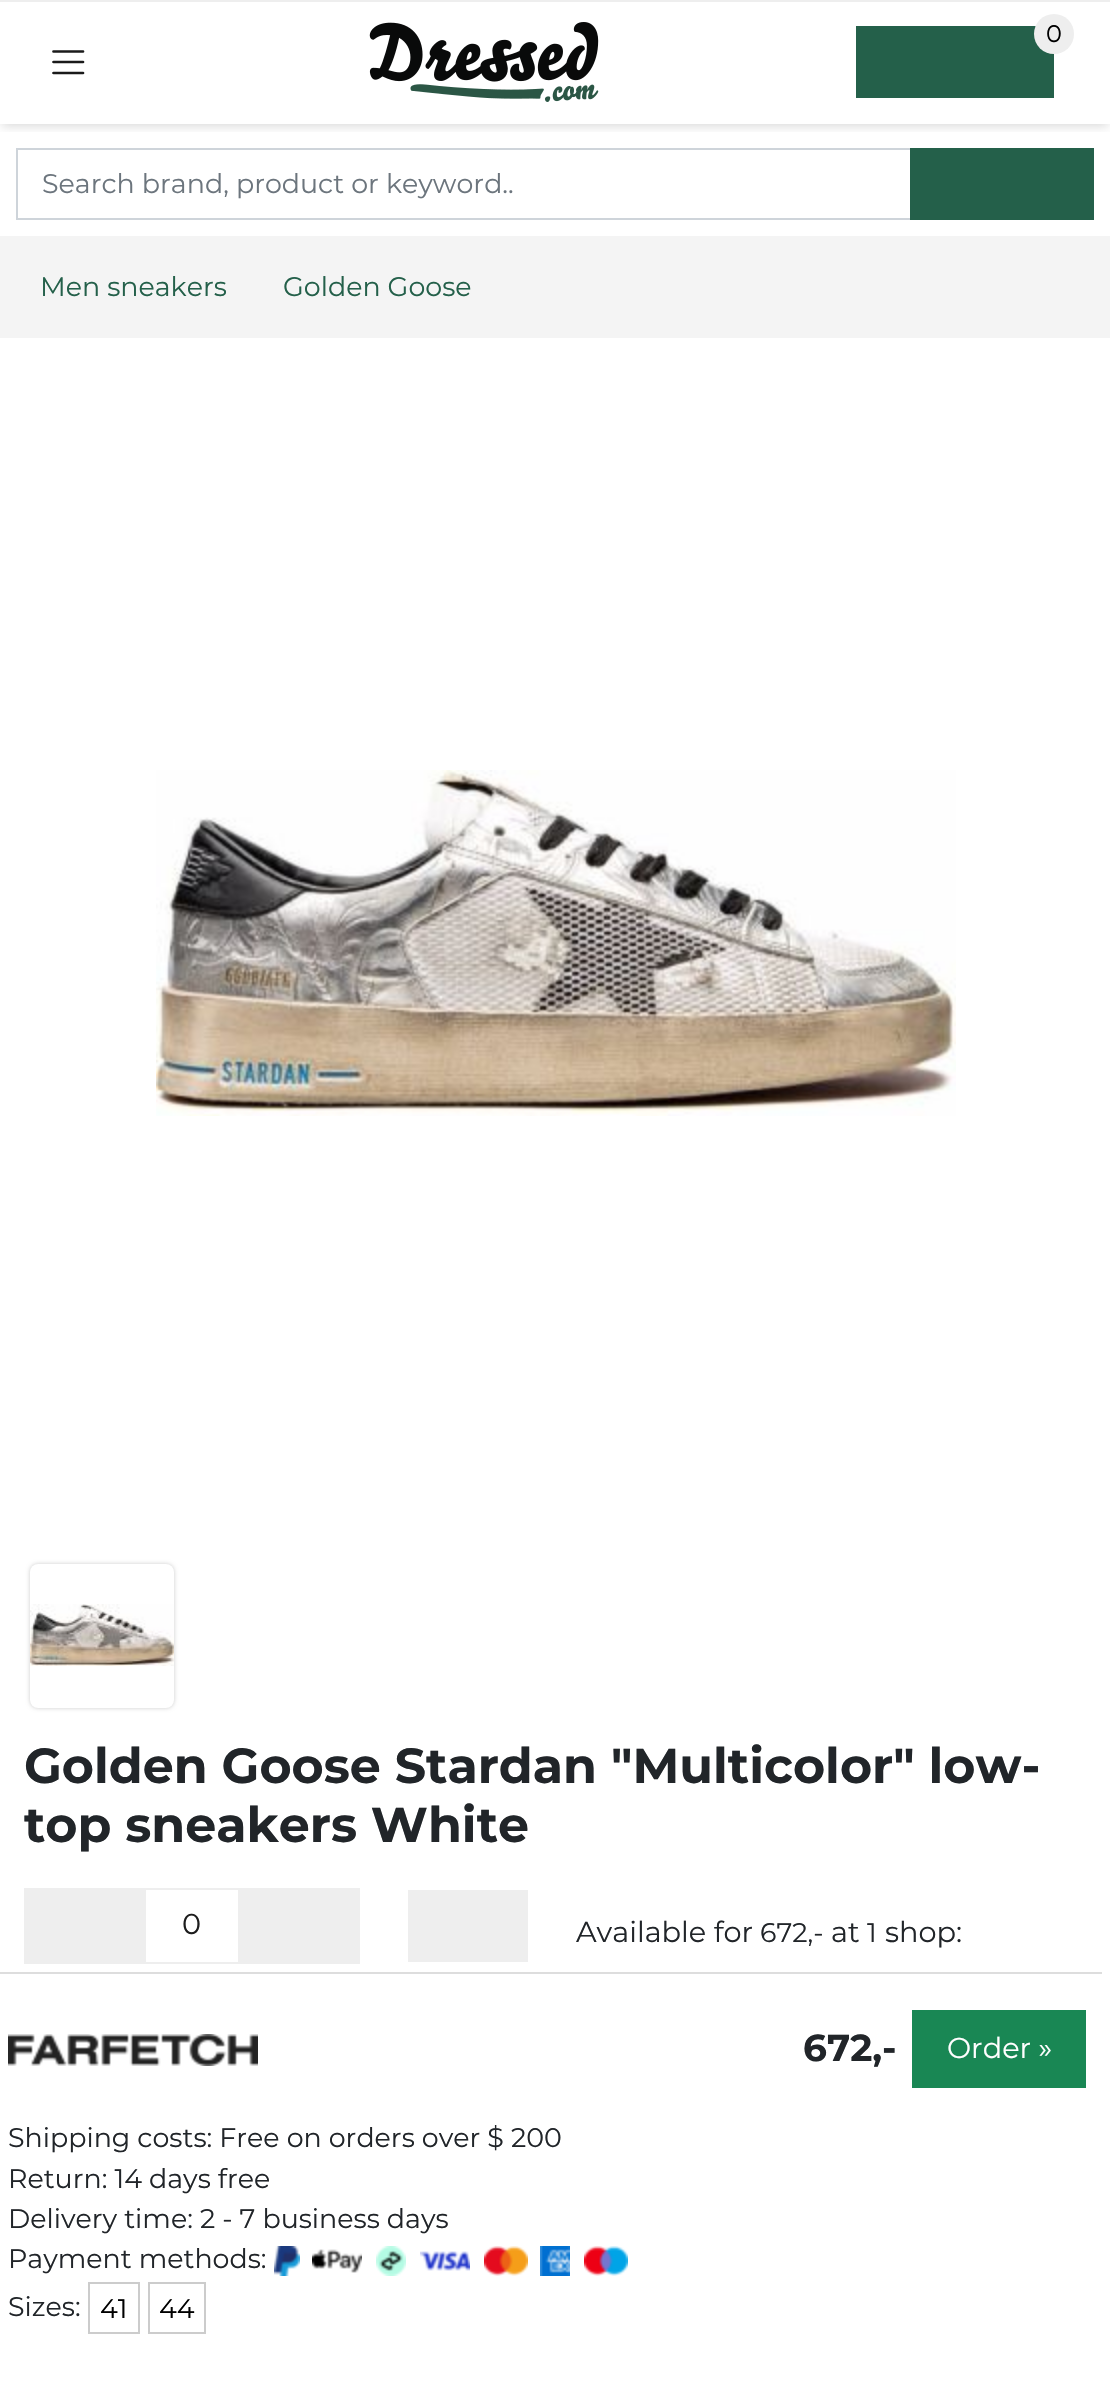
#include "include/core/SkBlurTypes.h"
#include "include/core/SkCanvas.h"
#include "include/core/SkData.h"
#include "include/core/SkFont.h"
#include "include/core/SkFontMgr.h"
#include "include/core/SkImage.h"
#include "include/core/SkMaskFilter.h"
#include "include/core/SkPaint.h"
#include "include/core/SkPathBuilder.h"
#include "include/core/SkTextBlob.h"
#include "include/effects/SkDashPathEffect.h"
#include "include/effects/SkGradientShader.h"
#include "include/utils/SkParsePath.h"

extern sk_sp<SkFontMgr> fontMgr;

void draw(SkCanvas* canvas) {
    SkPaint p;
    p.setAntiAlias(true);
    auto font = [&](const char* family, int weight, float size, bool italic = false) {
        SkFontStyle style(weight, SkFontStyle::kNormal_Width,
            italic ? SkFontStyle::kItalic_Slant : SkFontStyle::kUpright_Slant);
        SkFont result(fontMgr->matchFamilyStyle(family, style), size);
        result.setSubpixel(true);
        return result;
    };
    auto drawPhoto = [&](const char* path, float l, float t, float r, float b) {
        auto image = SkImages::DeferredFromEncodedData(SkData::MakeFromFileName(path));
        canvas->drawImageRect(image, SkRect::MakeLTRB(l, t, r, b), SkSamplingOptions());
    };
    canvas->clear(0xFFFFFFFF);
    canvas->save();
    canvas->clipRect(SkRect::MakeLTRB(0, 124, 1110, 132));
    p.setColor(0x26000000);
    p.setMaskFilter(SkMaskFilter::MakeBlur(kNormal_SkBlurStyle, 5));
    canvas->drawRect(SkRect::MakeLTRB(2, 6, 1108, 126), p);
    p.setMaskFilter(nullptr);
    canvas->restore();
    p.setColor(0xFFEEEEEE);
    canvas->drawRect(SkRect::MakeLTRB(0, 0, 1110, 2), p);
    drawPhoto("media/1.png", 369, 22, 599, 102);
    p.setColor(0xFF24604A);
    canvas->drawRect(SkRect::MakeLTRB(856, 26, 1054, 98), p);
    p.setColor(0xFFEEEEEE);
    canvas->drawCircle(1054, 34, 20, p);
    auto font1 = font("Montserrat", 400, 24);
    p.setColor(0xFF000000);
    canvas->drawString("0", 1046, 42, font1, p);
    p.setStyle(SkPaint::kStroke_Style);
    p.setStrokeWidth(2.7f);
    p.setStrokeCap(SkPaint::kRound_Cap);
    p.setColor(0xFF1A1A1A);
    canvas->drawPath(SkPathBuilder().moveTo(53.5f, 51.5f).lineTo(83, 51.5f).moveTo(53.5f, 62).lineTo(83, 62).moveTo(53.5f, 73).lineTo(83, 73).detach(), p);
    p.setStrokeWidth(2);
    p.setStrokeCap(SkPaint::kButt_Cap);
    p.setColor(0xFFCED4DA);
    canvas->drawRect(SkRect::MakeLTRB(17, 149, 911, 219), p);
    auto font2 = font("Montserrat", 400, 26.9f);
    p.setStyle(SkPaint::kFill_Style);
    p.setColor(0xFF6C757D);
    canvas->drawString("Search brand, product or keyword..", 42, 193, font2, p);
    p.setColor(0xFF24604A);
    canvas->drawRect(SkRect::MakeLTRB(910, 148, 1094, 220), p);
    p.setColor(0xFFF4F4F4);
    canvas->drawRect(SkRect::MakeLTRB(0, 236, 1110, 338), p);
    p.setColor(0xFF24604A);
    canvas->drawString("Men sneakers", 40, 296, font2, p);
    canvas->drawString("Golden Goose", 283, 296, font2, p);
    drawPhoto("media/2.png", 156, 770, 956, 1116);
    p.setColor(0x33000000);
    p.setMaskFilter(SkMaskFilter::MakeBlur(kNormal_SkBlurStyle, 2));
    canvas->drawRoundRect(SkRect::MakeLTRB(30, 1564, 174, 1708), 8, 8, p);
    p.setMaskFilter(nullptr);
    p.setColor(0xFFFFFFFF);
    canvas->drawRoundRect(SkRect::MakeLTRB(30, 1564, 174, 1708), 8, 8, p);
    drawPhoto("media/3.png", 30, 1604, 174, 1666);
    auto font3 = font("Montserrat", 700, 49.1f);
    p.setColor(0xFF212529);
    canvas->drawString("Golden Goose Stardan \"Multicolor\" low-", 24, 1783, font3, p);
    canvas->drawString("top sneakers White", 24, 1842, font3, p);
    p.setStyle(SkPaint::kStroke_Style);
    p.setColor(0xFFEEEEEE);
    canvas->drawRect(SkRect::MakeLTRB(25, 1889, 359, 1963), p);
    p.setStyle(SkPaint::kFill_Style);
    canvas->drawRect(SkRect::MakeLTRB(26, 1890, 146, 1962), p);
    auto font4 = font("Montserrat", 400, 28.75f);
    p.setColor(0xFF1D1D1D);
    canvas->drawString("0", 182, 1934, font4, p);
    p.setColor(0xFFEEEEEE);
    canvas->drawRect(SkRect::MakeLTRB(238, 1890, 358, 1962), p);
    canvas->drawRect(SkRect::MakeLTRB(408, 1890, 528, 1962), p);
    p.setColor(0xFF212529);
    canvas->drawString("Available for", 576, 1942, font4, p);
    canvas->drawString("672,-", 760, 1942, font2, p);
    canvas->drawString("at", 831, 1942, font4, p);
    canvas->drawString("1", 867, 1942, font2, p);
    canvas->drawString("shop:", 885, 1942, font4, p);
    p.setColor(0xFFDDDDDD);
    canvas->drawRect(SkRect::MakeLTRB(0, 1972, 1102, 1974), p);
    drawPhoto("media/4.png", 8, 2034, 258, 2066);
    auto font5 = font("Montserrat", 700, 37.5f);
    p.setColor(0xFF212529);
    canvas->drawString("672,-", 803, 2061, font5, p);
    p.setColor(0xFF198754);
    canvas->drawRect(SkRect::MakeLTRB(912, 2010, 1086, 2088), p);
    p.setColor(0xFFFFFFFF);
    canvas->drawString("Order »", 947, 2058, font4, p);
    p.setColor(0xFF212529);
    {
        const struct { const char* s; float x, y; } items[] = {
            {"Shipping costs: Free on orders over $ 200", 8, 2147},
            {"Return: 14 days free", 8, 2188},
            {"Delivery time: 2 - 7 business days", 8, 2228},
            {"Payment methods:", 8, 2268},
        };
        for (auto [s, x, y] : items) {
            canvas->drawString(s, x, y, font2, p);
        }
    }
    drawPhoto("media/5.png", 274, 2246, 300, 2276);
    drawPhoto("media/6.png", 312, 2249, 362, 2273);
    drawPhoto("media/7.png", 376, 2246, 406, 2276);
    drawPhoto("media/8.png", 420, 2251, 470, 2271);
    drawPhoto("media/9.png", 484, 2246, 528, 2276);
    drawPhoto("media/10.png", 540, 2246, 570, 2276);
    drawPhoto("media/11.png", 584, 2246, 628, 2276);
    canvas->drawString("Sizes:", 8, 2316, font2, p);
    p.setStyle(SkPaint::kStroke_Style);
    p.setColor(0xFFCCCCCC);
    canvas->drawRect(SkRect::MakeLTRB(89, 2283, 139, 2333), p);
    p.setStyle(SkPaint::kFill_Style);
    p.setColor(0xFF000000);
    canvas->drawString("41", 100, 2318, font2, p);
    p.setStyle(SkPaint::kStroke_Style);
    p.setColor(0xFFCCCCCC);
    canvas->drawRect(SkRect::MakeLTRB(149, 2283, 205, 2333), p);
    p.setStyle(SkPaint::kFill_Style);
    p.setColor(0xFF000000);
    canvas->drawString("44", 159, 2318, font2, p);
}
